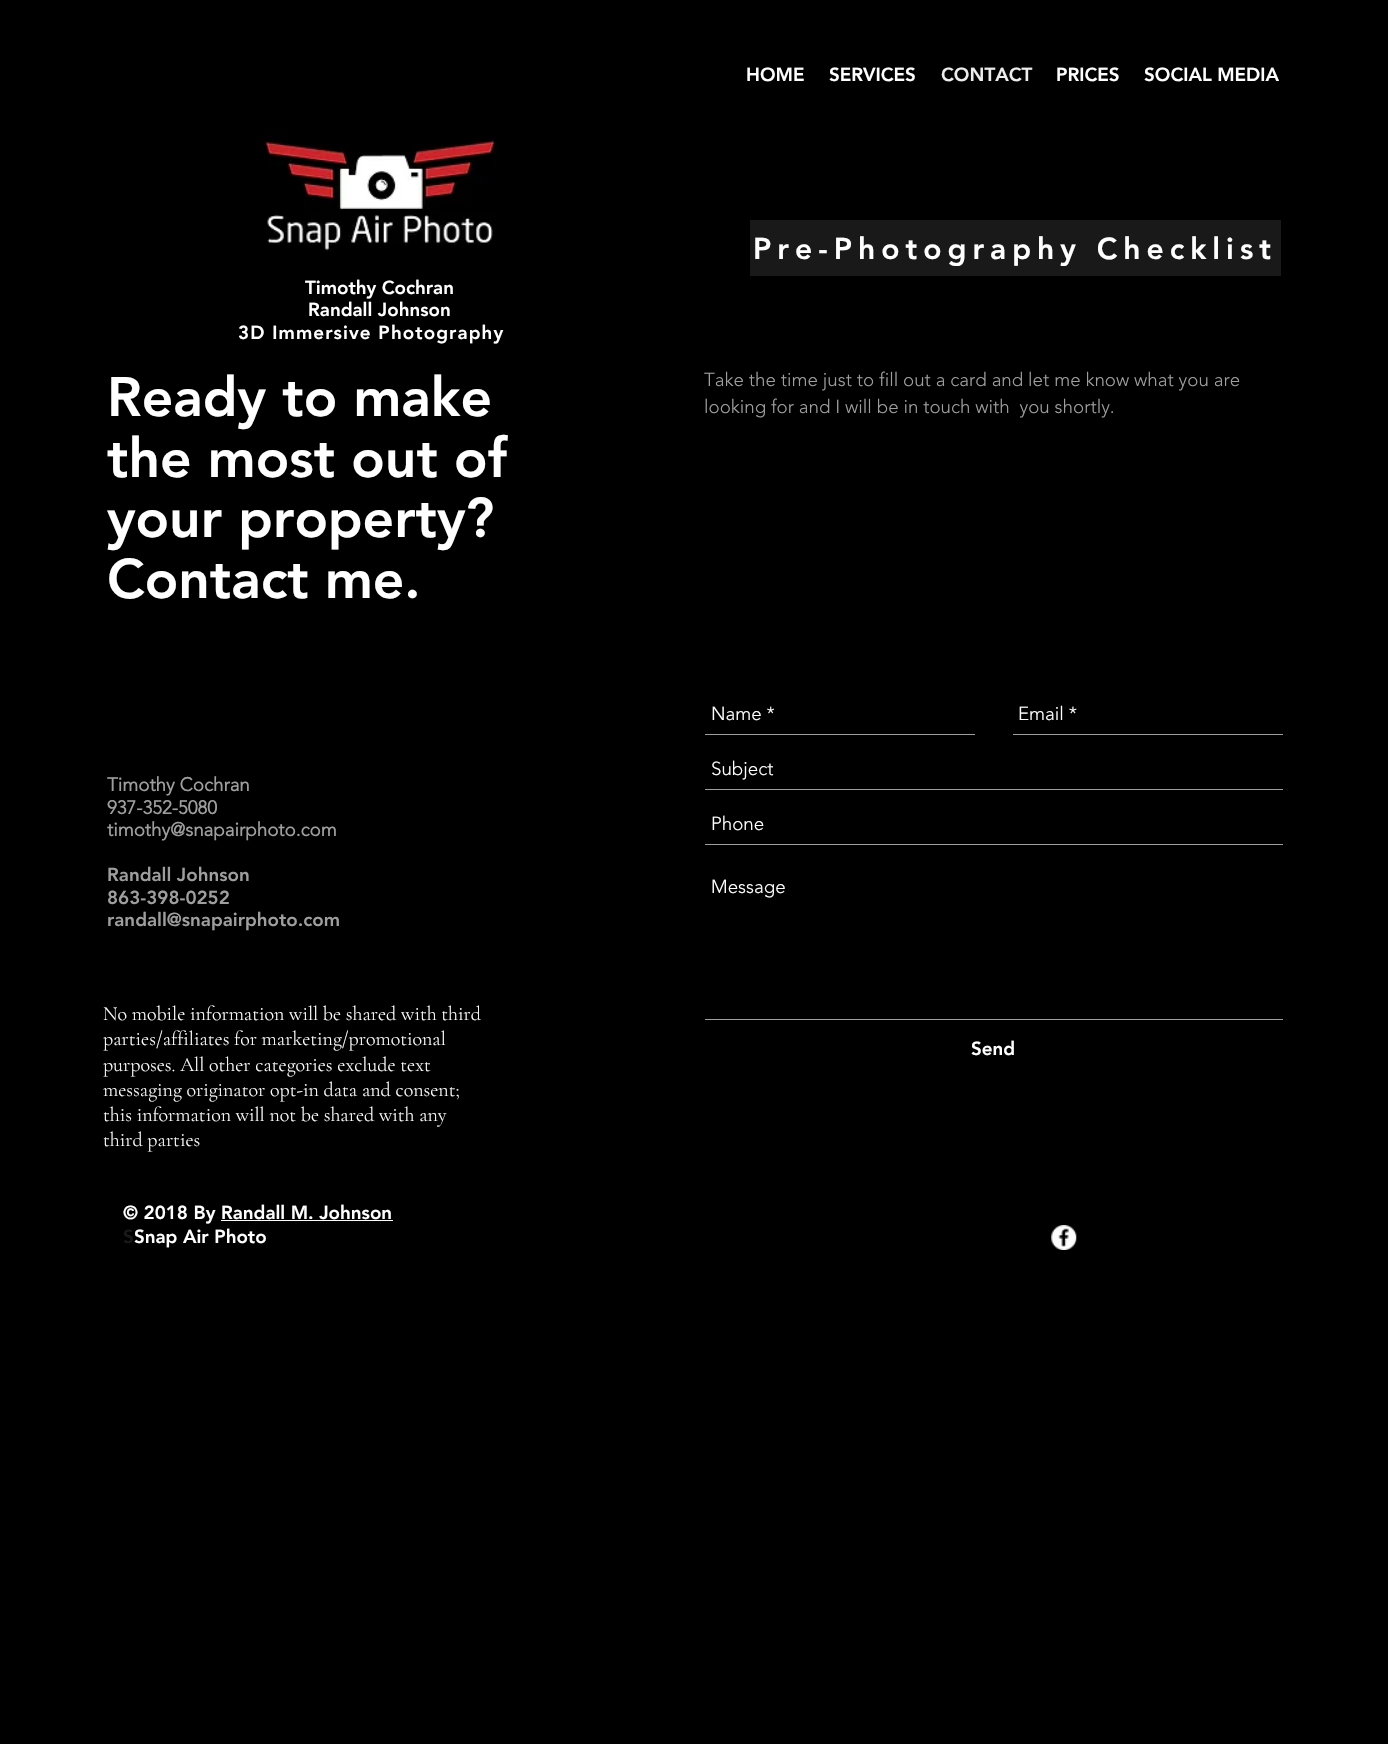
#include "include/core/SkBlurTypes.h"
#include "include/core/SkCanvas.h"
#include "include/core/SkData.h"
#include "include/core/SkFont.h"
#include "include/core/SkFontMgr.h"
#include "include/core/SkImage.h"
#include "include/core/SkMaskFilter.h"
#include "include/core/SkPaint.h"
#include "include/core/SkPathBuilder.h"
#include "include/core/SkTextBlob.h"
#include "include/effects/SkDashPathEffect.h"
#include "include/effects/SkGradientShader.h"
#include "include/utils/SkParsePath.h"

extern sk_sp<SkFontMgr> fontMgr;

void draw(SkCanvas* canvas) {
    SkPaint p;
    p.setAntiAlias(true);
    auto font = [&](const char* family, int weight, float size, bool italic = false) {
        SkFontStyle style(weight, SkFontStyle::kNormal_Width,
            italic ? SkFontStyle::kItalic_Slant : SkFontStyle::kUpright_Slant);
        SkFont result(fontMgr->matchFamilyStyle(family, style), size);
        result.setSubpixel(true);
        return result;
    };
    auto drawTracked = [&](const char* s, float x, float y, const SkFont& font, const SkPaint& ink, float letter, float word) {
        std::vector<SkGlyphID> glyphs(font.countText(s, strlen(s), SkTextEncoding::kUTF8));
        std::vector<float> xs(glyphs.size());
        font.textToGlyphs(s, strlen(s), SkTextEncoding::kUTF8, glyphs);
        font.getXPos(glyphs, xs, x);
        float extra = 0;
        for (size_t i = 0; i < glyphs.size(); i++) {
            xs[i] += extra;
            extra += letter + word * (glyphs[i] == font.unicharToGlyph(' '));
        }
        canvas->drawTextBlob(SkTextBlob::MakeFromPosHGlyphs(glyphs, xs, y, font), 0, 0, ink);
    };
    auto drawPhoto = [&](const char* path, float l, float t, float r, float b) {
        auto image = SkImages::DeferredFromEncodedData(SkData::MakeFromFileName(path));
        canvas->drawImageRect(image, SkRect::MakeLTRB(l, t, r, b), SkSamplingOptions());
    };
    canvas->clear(0xFF000000);
    auto font1 = font("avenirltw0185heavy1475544", 900, 18.75f);
    p.setColor(0xFFFFFFFF);
    canvas->drawString("HOME", 746, 81, font1, p);
    canvas->drawString("SERVICES", 829, 81, font1, p);
    p.setColor(0xFFEDEDED);
    canvas->drawString("CONTACT", 941, 81, font1, p);
    p.setColor(0xFFFFFFFF);
    canvas->drawString("PRICES", 1056, 81, font1, p);
    canvas->drawString("SOCIAL MEDIA", 1144, 81, font1, p);
    drawPhoto("media/1.png", 258, 135, 497, 251);
    p.setColor(0xFF191919);
    canvas->drawRect(SkRect::MakeLTRB(750, 220, 1281, 276), p);
    canvas->save();
    canvas->clipRect(SkRect::MakeLTRB(753, 230, 1278, 266));
    auto font2 = font("avenirltw0185heavy1475544", 900, 30);
    p.setColor(0xFFFFFFFF);
    drawTracked("Pre-Photography Checklist", 753, 259, font2, p, 6, 0);
    canvas->restore();
    canvas->drawString("Timothy Cochran", 305, 294, font1, p);
    canvas->drawString("Randall Johnson", 308, 316, font1, p);
    drawTracked("3D Immersive Photography", 238, 339, font1, p, 1.1f, 0);
    auto font3 = font("avenirltw0185heavy1475544", 900, 55);
    {
        const struct { const char* s; float x, y; } items[] = {
            {"Ready to make", 107, 416},
            {"the most out of", 107, 477},
            {"your property?", 107, 537},
            {"Contact me.", 107, 598},
        };
        for (auto [s, x, y] : items) {
            canvas->drawString(s, x, y, font3, p);
        }
    }
    auto font4 = font("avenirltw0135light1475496", 300, 18.75f);
    p.setColor(0xFF9E9E9E);
    canvas->drawString("Take the time just to fill out a card and let me know what you are", 704, 386, font4, p);
    canvas->drawString("looking for and I will be in touch with  you shortly.", 704, 413, font4, p);
    auto font5 = font("avenirltw0135light1475496", 700, 18.75f);
    {
        const struct { const char* s; float x, y; } items[] = {
            {"Timothy Cochran", 107, 791},
            {"937-352-5080", 107, 814},
            {"timothy@snapairphoto.com", 107, 836},
        };
        for (auto [s, x, y] : items) {
            canvas->drawString(s, x, y, font5, p);
        }
    }
    {
        const struct { const char* s; float x, y; } items[] = {
            {"Randall Johnson", 107, 881},
            {"863-398-0252", 107, 904},
            {"randall@snapairphoto.com", 107, 926},
        };
        for (auto [s, x, y] : items) {
            canvas->drawString(s, x, y, font1, p);
        }
    }
    canvas->drawRect(SkRect::MakeLTRB(705, 734, 975, 735), p);
    p.setColor(0xFFFFFFFF);
    canvas->drawString("Name *", 711, 720, font4, p);
    p.setColor(0xFF9E9E9E);
    canvas->drawRect(SkRect::MakeLTRB(1013, 734, 1283, 735), p);
    p.setColor(0xFFFFFFFF);
    canvas->drawString("Email *", 1018, 720, font4, p);
    p.setColor(0xFF9E9E9E);
    canvas->drawRect(SkRect::MakeLTRB(705, 789, 1283, 790), p);
    p.setColor(0xFFFFFFFF);
    canvas->drawString("Subject", 711, 775, font4, p);
    p.setColor(0xFF9E9E9E);
    canvas->drawRect(SkRect::MakeLTRB(705, 844, 1283, 845), p);
    p.setColor(0xFFFFFFFF);
    canvas->drawString("Phone", 711, 830, font4, p);
    p.setColor(0xFF9E9E9E);
    canvas->drawRect(SkRect::MakeLTRB(705, 1019, 1283, 1020), p);
    p.setColor(0xFFFFFFFF);
    canvas->drawString("Message", 711, 893, font4, p);
    canvas->drawString("Send", 971, 1055, font1, p);
    auto font6 = font("Cormorant Garamond", 300, 20);
    {
        const struct { const char* s; float x, y; } items[] = {
            {"No mobile information will be shared with third", 103, 1020},
            {"parties/affiliates for marketing/promotional", 103, 1045},
            {"purposes. All other categories exclude text", 103, 1071},
            {"messaging originator opt-in data and consent;", 103, 1096},
            {"this information will not be shared with any", 103, 1121},
            {"third parties", 103, 1146},
        };
        for (auto [s, x, y] : items) {
            canvas->drawString(s, x, y, font6, p);
        }
    }
    canvas->drawString("© 2018 By Randall M. Johnson", 123, 1219, font1, p);
    canvas->drawRect(SkRect::MakeLTRB(221, 1220, 393, 1221), p);
    p.setColor(0xFF191919);
    canvas->drawString("S", 123, 1243, font1, p);
    p.setColor(0xFFFFFFFF);
    canvas->drawString("Snap Air Photo", 134, 1243, font1, p);
    drawPhoto("media/2.png", 1051, 1225, 1077, 1250);
}
